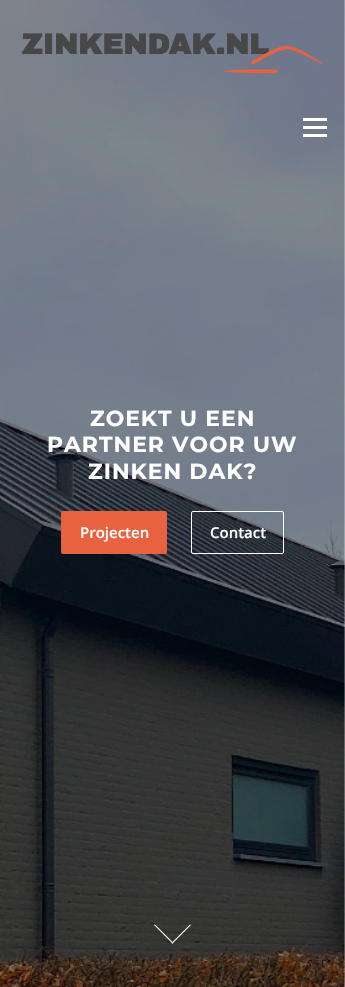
#include "include/core/SkBlurTypes.h"
#include "include/core/SkCanvas.h"
#include "include/core/SkData.h"
#include "include/core/SkFont.h"
#include "include/core/SkFontMgr.h"
#include "include/core/SkImage.h"
#include "include/core/SkMaskFilter.h"
#include "include/core/SkPaint.h"
#include "include/core/SkPathBuilder.h"
#include "include/core/SkTextBlob.h"
#include "include/effects/SkDashPathEffect.h"
#include "include/effects/SkGradientShader.h"
#include "include/utils/SkParsePath.h"

extern sk_sp<SkFontMgr> fontMgr;

void draw(SkCanvas* canvas) {
    SkPaint p;
    p.setAntiAlias(true);
    auto font = [&](const char* family, int weight, float size, bool italic = false) {
        SkFontStyle style(weight, SkFontStyle::kNormal_Width,
            italic ? SkFontStyle::kItalic_Slant : SkFontStyle::kUpright_Slant);
        SkFont result(fontMgr->matchFamilyStyle(family, style), size);
        result.setSubpixel(true);
        return result;
    };
    auto drawTracked = [&](const char* s, float x, float y, const SkFont& font, const SkPaint& ink, float letter, float word) {
        std::vector<SkGlyphID> glyphs(font.countText(s, strlen(s), SkTextEncoding::kUTF8));
        std::vector<float> xs(glyphs.size());
        font.textToGlyphs(s, strlen(s), SkTextEncoding::kUTF8, glyphs);
        font.getXPos(glyphs, xs, x);
        float extra = 0;
        for (size_t i = 0; i < glyphs.size(); i++) {
            xs[i] += extra;
            extra += letter + word * (glyphs[i] == font.unicharToGlyph(' '));
        }
        canvas->drawTextBlob(SkTextBlob::MakeFromPosHGlyphs(glyphs, xs, y, font), 0, 0, ink);
    };
    auto drawPhoto = [&](const char* path, float l, float t, float r, float b) {
        auto image = SkImages::DeferredFromEncodedData(SkData::MakeFromFileName(path));
        canvas->drawImageRect(image, SkRect::MakeLTRB(l, t, r, b), SkSamplingOptions());
    };
    canvas->clear(0xFFFFFFFF);
    drawPhoto("media/2.png", 0, 0, 345, 987);
    drawPhoto("media/1.png", 22, 33, 323, 73);
    {
        const struct { float l, t, r, b; SkColor color; } items[] = {
            {303, 126, 327, 129, 0xFFFFFFFF},
            {303, 118, 327, 121, 0xFFFFFFFF},
            {303, 134, 327, 137, 0xFFFFFFFF},
        };
        for (auto [l, t, r, b, color] : items) {
            p.setColor(color);
            canvas->drawRect(SkRect::MakeLTRB(l, t, r, b), p);
        }
    }
    auto font1 = font("Montserrat", 700, 21.9f);
    {
        const struct { const char* s; float x, y; } items[] = {
            {"ZOEKT U EEN", 90, 426},
            {"PARTNER VOOR UW", 47, 452},
            {"ZINKEN DAK?", 88, 479},
        };
        for (auto [s, x, y] : items) {
            drawTracked(s, x, y, font1, p, 1, 0);
        }
    }
    p.setColor(0xFFE86240);
    canvas->drawRoundRect(SkRect::MakeLTRB(61, 511, 167, 554), 2, 2, p);
    auto font2 = font("Open Sans", 600, 15);
    p.setColor(0xFFFFFFFF);
    canvas->drawString("Projecten", 80, 538, font2, p);
    p.setStyle(SkPaint::kStroke_Style);
    p.setStrokeWidth(1);
    canvas->drawRoundRect(SkRect::MakeLTRB(191.5f, 511.5f, 283.5f, 553.5f), 1.5f, 1.5f, p);
    p.setStyle(SkPaint::kFill_Style);
    canvas->drawString("Contact", 210, 538, font2, p);
    canvas->drawPath(SkPathBuilder().moveTo(172.5f, 943.5f).lineTo(154, 925).lineTo(155, 924.5f).lineTo(173.5f, 943).close().detach(), p);
    canvas->drawPath(SkPathBuilder().moveTo(191, 925).lineTo(172.5f, 943.5f).lineTo(171.5f, 943).lineTo(190, 924.5f).close().detach(), p);
}
